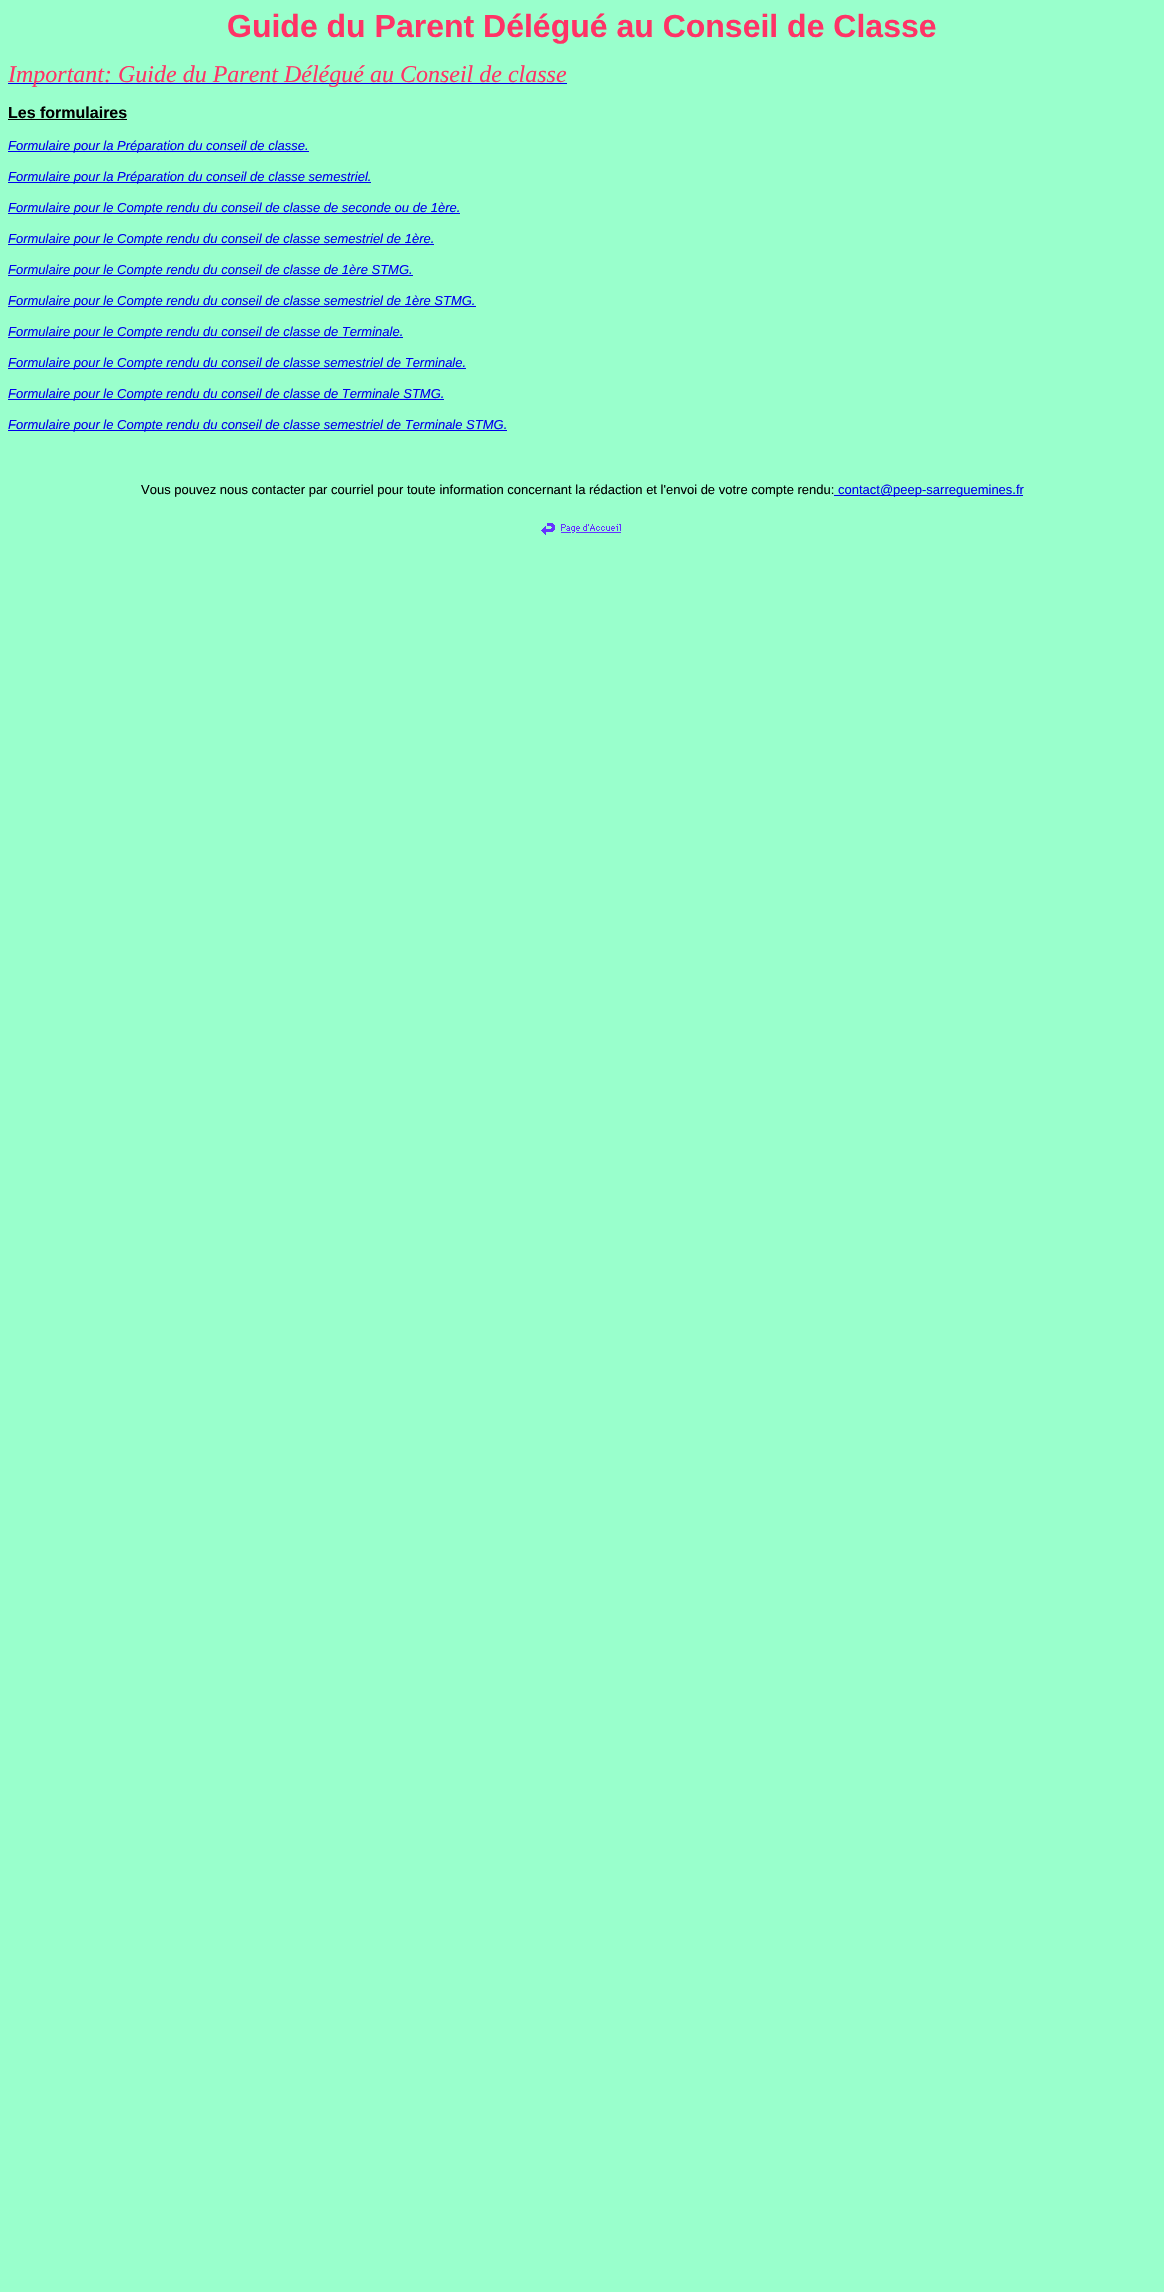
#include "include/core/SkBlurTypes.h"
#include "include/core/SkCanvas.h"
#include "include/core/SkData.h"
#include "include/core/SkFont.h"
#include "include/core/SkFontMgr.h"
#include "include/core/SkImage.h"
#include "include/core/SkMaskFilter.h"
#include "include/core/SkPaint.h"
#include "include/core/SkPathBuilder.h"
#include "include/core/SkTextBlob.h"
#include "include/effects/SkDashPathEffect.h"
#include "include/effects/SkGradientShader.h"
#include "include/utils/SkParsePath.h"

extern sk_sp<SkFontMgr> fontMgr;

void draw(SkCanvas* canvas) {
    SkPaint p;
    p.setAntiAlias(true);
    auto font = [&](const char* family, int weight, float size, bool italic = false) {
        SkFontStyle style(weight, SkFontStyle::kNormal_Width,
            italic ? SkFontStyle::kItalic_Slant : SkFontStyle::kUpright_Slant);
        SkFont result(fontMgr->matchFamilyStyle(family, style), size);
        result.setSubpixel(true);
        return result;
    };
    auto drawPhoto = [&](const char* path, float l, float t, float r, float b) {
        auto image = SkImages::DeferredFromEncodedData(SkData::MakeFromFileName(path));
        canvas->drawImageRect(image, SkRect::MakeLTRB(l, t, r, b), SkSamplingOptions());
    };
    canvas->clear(0xFF99FFCC);
    auto font1 = font("Liberation Sans", 700, 32);
    p.setColor(0xFFFF3366);
    canvas->drawString("Guide du Parent Délégué au Conseil de Classe", 227, 37, font1, p);
    p.setColor(0xFF0000EE);
    canvas->drawRect(SkRect::MakeLTRB(8, 83, 567, 84), p);
    auto font2 = font("Liberation Serif", 400, 24, true);
    p.setColor(0xFFFF3366);
    canvas->drawString("Important: Guide du Parent Délégué au Conseil de classe", 8, 82, font2, p);
    auto font3 = font("Liberation Sans", 700, 16);
    p.setColor(0xFF000000);
    canvas->drawString("Les formulaires", 8, 118, font3, p);
    canvas->drawRect(SkRect::MakeLTRB(8, 119, 127, 120), p);
    p.setColor(0xFF0000EE);
    canvas->drawRect(SkRect::MakeLTRB(8, 151, 309, 152), p);
    auto font4 = font("Liberation Sans", 400, 13, true);
    canvas->drawString("Formulaire pour la Préparation du conseil de classe.", 8, 150, font4, p);
    canvas->drawRect(SkRect::MakeLTRB(8, 182, 371, 183), p);
    canvas->drawString("Formulaire pour la Préparation du conseil de classe semestriel.", 8, 181, font4, p);
    canvas->drawRect(SkRect::MakeLTRB(8, 213, 460, 214), p);
    canvas->drawString("Formulaire pour le Compte rendu du conseil de classe de seconde ou de 1ère.", 8, 212, font4, p);
    canvas->drawRect(SkRect::MakeLTRB(8, 244, 434, 245), p);
    canvas->drawString("Formulaire pour le Compte rendu du conseil de classe semestriel de 1ère.", 8, 243, font4, p);
    canvas->drawRect(SkRect::MakeLTRB(8, 275, 413, 276), p);
    canvas->drawString("Formulaire pour le Compte rendu du conseil de classe de 1ère STMG.", 8, 274, font4, p);
    canvas->drawRect(SkRect::MakeLTRB(8, 306, 476, 307), p);
    canvas->drawString("Formulaire pour le Compte rendu du conseil de classe semestriel de 1ère STMG.", 8, 305, font4, p);
    canvas->drawRect(SkRect::MakeLTRB(8, 337, 403, 338), p);
    canvas->drawString("Formulaire pour le Compte rendu du conseil de classe de Terminale.", 8, 336, font4, p);
    canvas->drawRect(SkRect::MakeLTRB(8, 368, 466, 369), p);
    canvas->drawString("Formulaire pour le Compte rendu du conseil de classe semestriel de Terminale.", 8, 367, font4, p);
    canvas->drawRect(SkRect::MakeLTRB(8, 399, 444, 400), p);
    canvas->drawString("Formulaire pour le Compte rendu du conseil de classe de Terminale STMG.", 8, 398, font4, p);
    canvas->drawRect(SkRect::MakeLTRB(8, 430, 507, 431), p);
    canvas->drawString("Formulaire pour le Compte rendu du conseil de classe semestriel de Terminale STMG.", 8, 429, font4, p);
    auto font5 = font("Liberation Sans", 400, 13);
    p.setColor(0xFF000000);
    canvas->drawString("Vous pouvez nous contacter par courriel pour toute information concernant la rédaction et l'envoi de votre compte rendu:", 141, 494, font5, p);
    p.setColor(0xFF0000EE);
    canvas->drawRect(SkRect::MakeLTRB(834, 495, 1023, 496), p);
    canvas->drawString("contact@peep-sarreguemines.fr", 838, 494, font5, p);
    drawPhoto("media/1.png", 541, 523, 621, 535);
}
